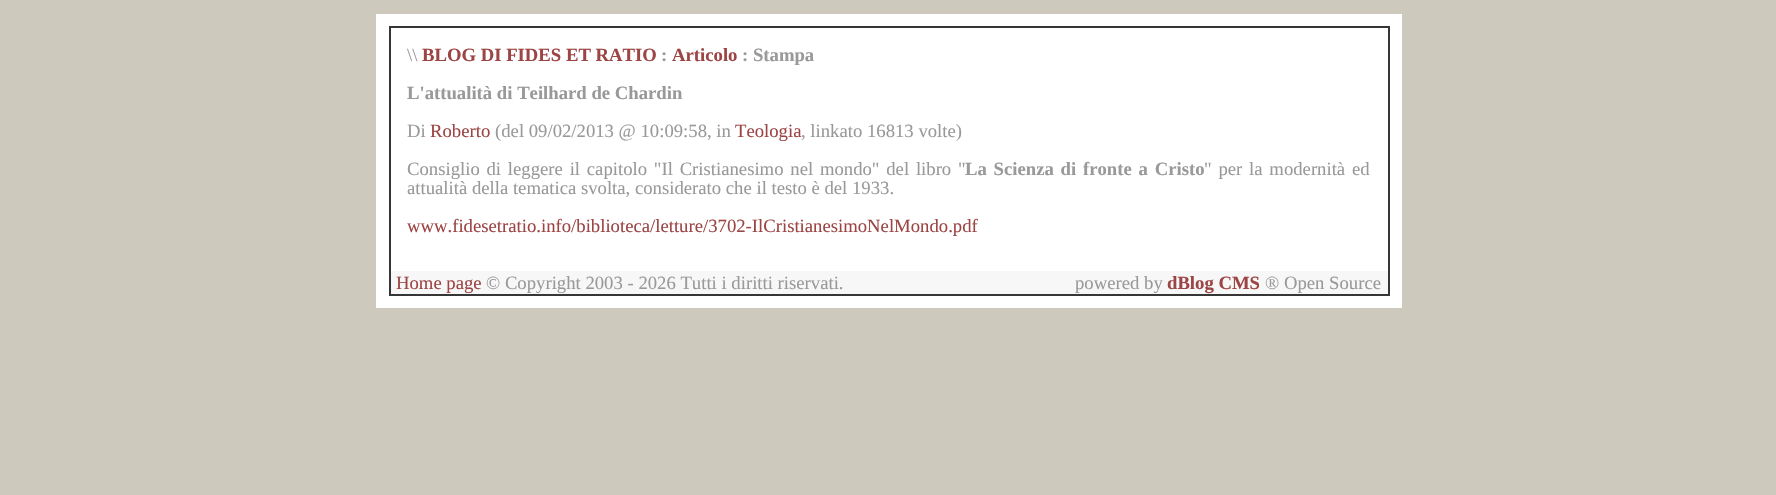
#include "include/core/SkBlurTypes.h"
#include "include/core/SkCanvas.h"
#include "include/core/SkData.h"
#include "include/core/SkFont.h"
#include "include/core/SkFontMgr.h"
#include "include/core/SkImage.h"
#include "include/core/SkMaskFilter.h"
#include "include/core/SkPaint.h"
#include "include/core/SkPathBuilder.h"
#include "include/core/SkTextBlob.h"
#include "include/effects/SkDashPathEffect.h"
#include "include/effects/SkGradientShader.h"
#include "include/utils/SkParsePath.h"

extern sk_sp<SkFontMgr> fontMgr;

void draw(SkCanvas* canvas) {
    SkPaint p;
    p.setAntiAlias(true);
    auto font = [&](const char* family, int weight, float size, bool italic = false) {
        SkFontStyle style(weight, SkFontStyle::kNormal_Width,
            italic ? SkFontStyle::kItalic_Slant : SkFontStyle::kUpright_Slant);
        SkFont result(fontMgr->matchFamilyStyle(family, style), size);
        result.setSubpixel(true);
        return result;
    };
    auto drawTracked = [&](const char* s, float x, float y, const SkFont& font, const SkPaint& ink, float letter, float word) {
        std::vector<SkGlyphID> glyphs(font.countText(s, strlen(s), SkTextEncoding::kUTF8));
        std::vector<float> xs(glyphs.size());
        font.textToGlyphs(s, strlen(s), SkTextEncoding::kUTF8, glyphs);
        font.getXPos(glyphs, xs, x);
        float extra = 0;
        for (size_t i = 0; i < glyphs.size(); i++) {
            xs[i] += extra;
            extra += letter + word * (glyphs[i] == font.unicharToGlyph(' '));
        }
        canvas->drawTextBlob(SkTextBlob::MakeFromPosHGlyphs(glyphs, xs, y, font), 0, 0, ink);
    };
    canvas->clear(0xFFCDCABD);
    {
        const struct { float l, t, r, b; SkColor color; } items[] = {
            {376, 14, 1402, 308, 0xFFFFFFFF},
            {389, 26, 1390, 28, 0xFF363636},
            {1388, 26, 1390, 296, 0xFF363636},
            {389, 294, 1390, 296, 0xFF363636},
            {389, 26, 391, 296, 0xFF363636},
        };
        for (auto [l, t, r, b, color] : items) {
            p.setColor(color);
            canvas->drawRect(SkRect::MakeLTRB(l, t, r, b), p);
        }
    }
    auto font1 = font("Liberation Serif", 400, 18.7f);
    p.setColor(0xFF999999);
    canvas->drawString("\\\\", 407, 61, font1, p);
    auto font2 = font("Liberation Serif", 700, 18.7f);
    p.setColor(0xFF9D4444);
    canvas->drawString("BLOG DI FIDES ET RATIO", 422, 61, font2, p);
    p.setColor(0xFF999999);
    canvas->drawString(":", 661, 61, font2, p);
    p.setColor(0xFF9D4444);
    canvas->drawString("Articolo", 672, 61, font2, p);
    p.setColor(0xFF999999);
    canvas->drawString(": Stampa", 742, 61, font2, p);
    canvas->drawString("L'attualità di Teilhard de Chardin", 407, 99, font2, p);
    canvas->drawString("Di", 407, 137, font1, p);
    p.setColor(0xFF9D4444);
    canvas->drawString("Roberto", 430, 137, font1, p);
    p.setColor(0xFF999999);
    canvas->drawString("(del 09/02/2013 @ 10:09:58, in", 495, 137, font1, p);
    p.setColor(0xFF9D4444);
    canvas->drawString("Teologia", 735, 137, font1, p);
    p.setColor(0xFF999999);
    canvas->drawString(", linkato 16813 volte)", 801, 137, font1, p);
    drawTracked("Consiglio di leggere il capitolo \"Il Cristianesimo nel mondo\" del libro \"", 407, 175, font1, p, 0, 2.1f);
    drawTracked("La Scienza di fronte a Cristo", 965, 175, font2, p, 0, 2.1f);
    drawTracked("\" per la modernità ed", 1204, 175, font1, p, 0, 2.1f);
    canvas->drawString("attualità della tematica svolta, considerato che il testo è del 1933.", 407, 194, font1, p);
    p.setColor(0xFF9D4444);
    canvas->drawString("www.fidesetratio.info/biblioteca/letture/3702-IlCristianesimoNelMondo.pdf", 407, 232, font1, p);
    p.setColor(0xFFF7F7F7);
    canvas->drawRect(SkRect::MakeLTRB(391, 271, 1388, 294), p);
    p.setColor(0xFF9D4444);
    canvas->drawString("Home page", 396, 289, font1, p);
    p.setColor(0xFF999999);
    canvas->drawString("© Copyright 2003 - 2026 Tutti i diritti riservati.", 486, 289, font1, p);
    canvas->drawString("powered by", 1075, 289, font1, p);
    p.setColor(0xFF9D4444);
    canvas->drawString("dBlog CMS", 1167, 289, font2, p);
    p.setColor(0xFF999999);
    canvas->drawString("® Open Source", 1265, 289, font1, p);
}
